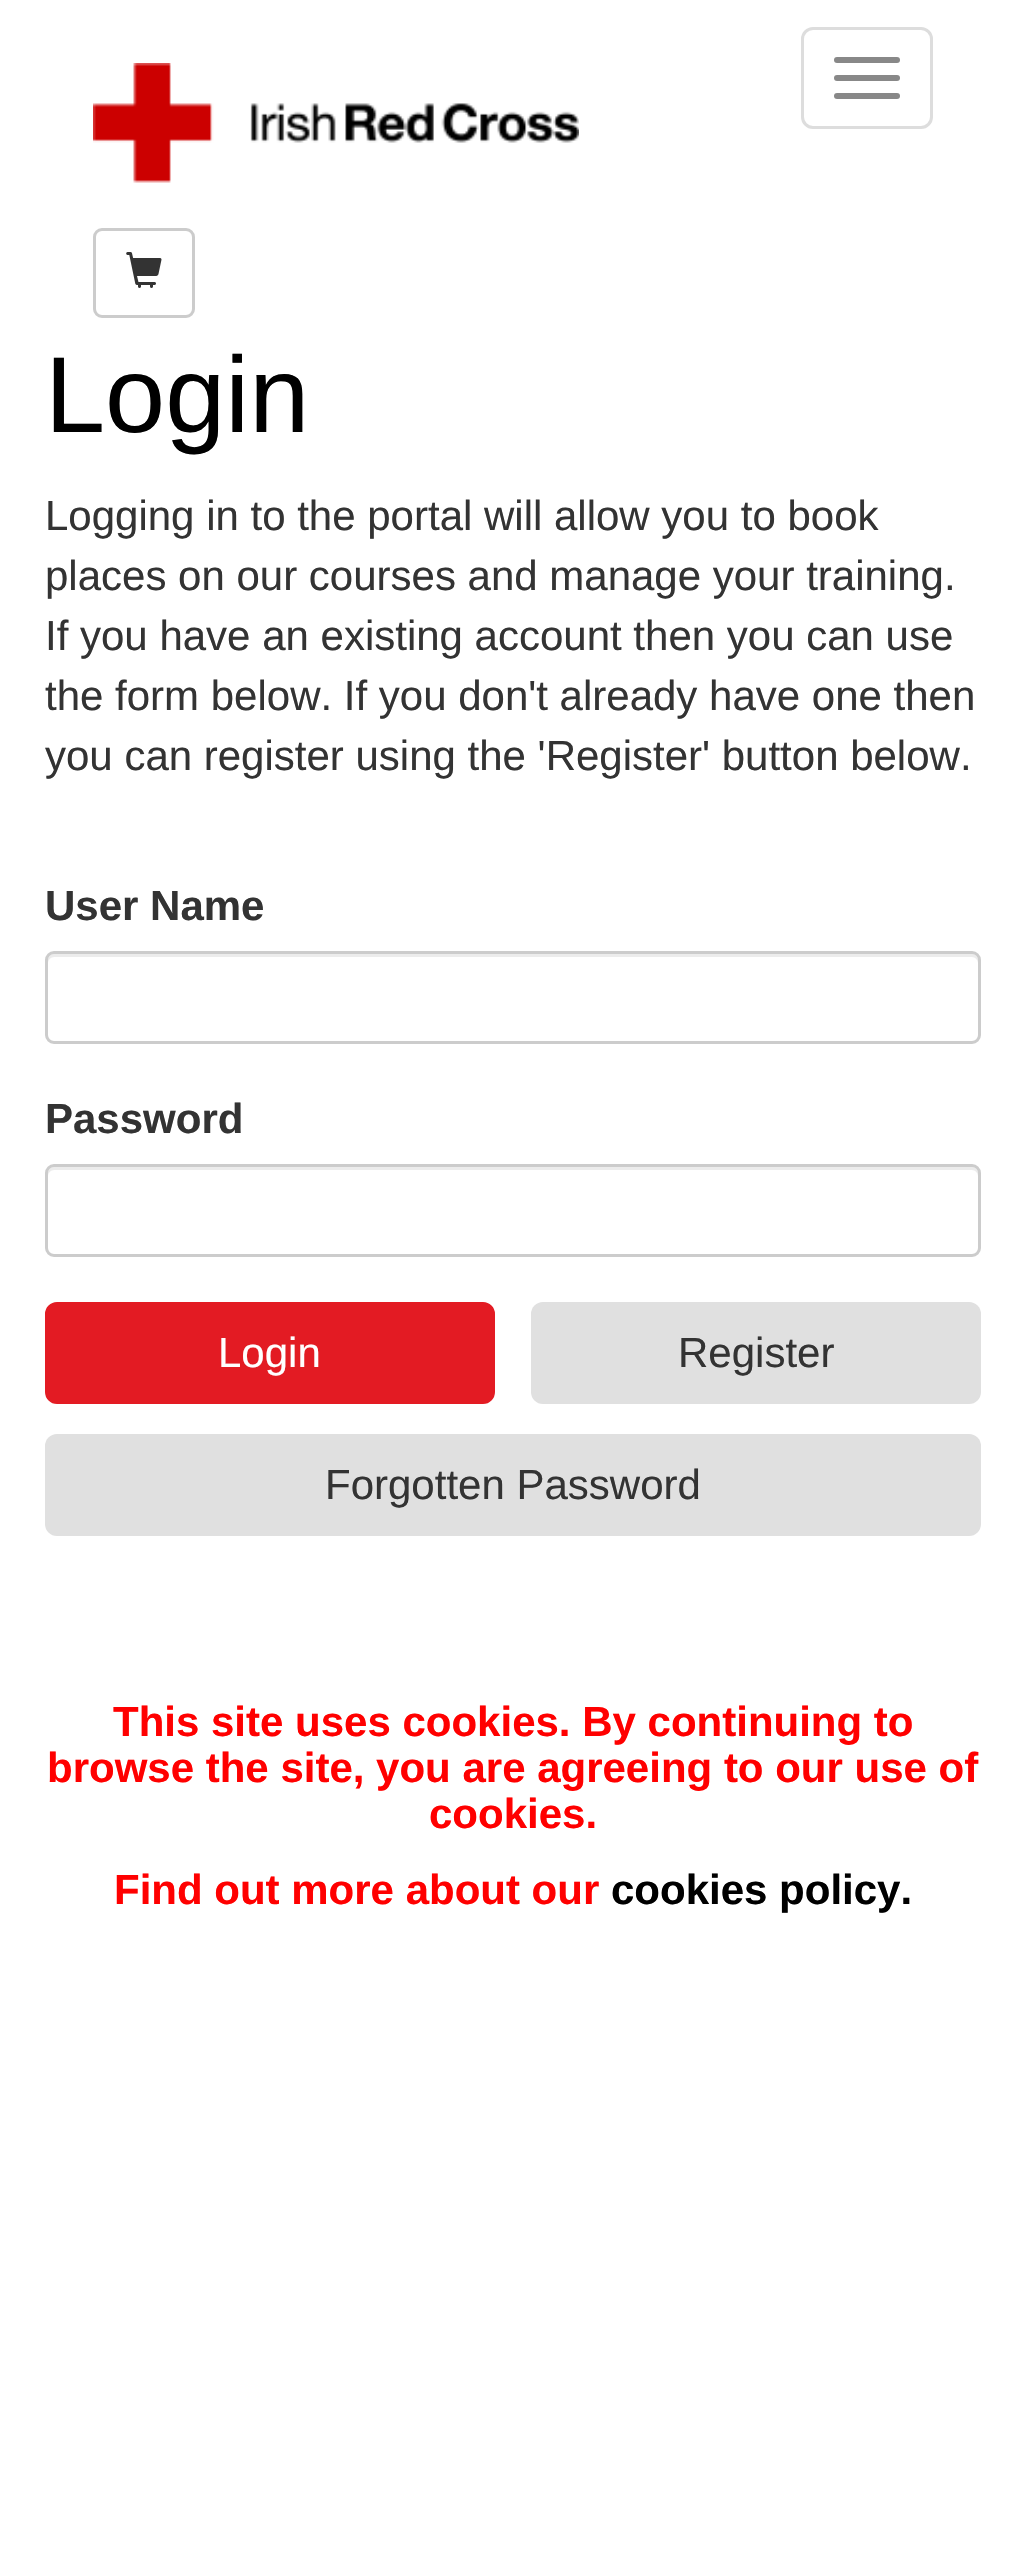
#include "include/core/SkBlurTypes.h"
#include "include/core/SkCanvas.h"
#include "include/core/SkData.h"
#include "include/core/SkFont.h"
#include "include/core/SkFontMgr.h"
#include "include/core/SkImage.h"
#include "include/core/SkMaskFilter.h"
#include "include/core/SkPaint.h"
#include "include/core/SkPathBuilder.h"
#include "include/core/SkTextBlob.h"
#include "include/effects/SkDashPathEffect.h"
#include "include/effects/SkGradientShader.h"
#include "include/utils/SkParsePath.h"

extern sk_sp<SkFontMgr> fontMgr;

void draw(SkCanvas* canvas) {
    SkPaint p;
    p.setAntiAlias(true);
    auto font = [&](const char* family, int weight, float size, bool italic = false) {
        SkFontStyle style(weight, SkFontStyle::kNormal_Width,
            italic ? SkFontStyle::kItalic_Slant : SkFontStyle::kUpright_Slant);
        SkFont result(fontMgr->matchFamilyStyle(family, style), size);
        result.setSubpixel(true);
        return result;
    };
    auto drawPhoto = [&](const char* path, float l, float t, float r, float b) {
        auto image = SkImages::DeferredFromEncodedData(SkData::MakeFromFileName(path));
        canvas->drawImageRect(image, SkRect::MakeLTRB(l, t, r, b), SkSamplingOptions());
    };
    canvas->clear(0xFFFFFFFF);
    drawPhoto("media/1.png", 93, 63, 579, 183);
    p.setStyle(SkPaint::kStroke_Style);
    p.setStrokeWidth(3);
    p.setColor(0xFFDDDDDD);
    canvas->drawRoundRect(SkRect::MakeLTRB(802.5f, 28.5f, 931.5f, 127.5f), 10.5f, 10.5f, p);
    p.setStyle(SkPaint::kFill_Style);
    p.setColor(0xFF888888);
    canvas->drawRoundRect(SkRect::MakeLTRB(834, 57, 900, 63), 3, 3, p);
    canvas->drawRoundRect(SkRect::MakeLTRB(834, 75, 900, 81), 3, 3, p);
    canvas->drawRoundRect(SkRect::MakeLTRB(834, 93, 900, 99), 3, 3, p);
    p.setStyle(SkPaint::kStroke_Style);
    p.setColor(0xFFCCCCCC);
    canvas->drawRoundRect(SkRect::MakeLTRB(94.5f, 229.5f, 193.5f, 316.5f), 7.5f, 7.5f, p);
    drawPhoto("media/2.png", 126, 252, 162, 288);
    auto font1 = font("Liberation Sans", 400, 108);
    p.setStyle(SkPaint::kFill_Style);
    p.setColor(0xFF000000);
    canvas->drawString("Login", 45, 432, font1, p);
    auto font2 = font("Liberation Sans", 400, 42);
    p.setColor(0xFF333333);
    {
        const struct { const char* s; float x, y; } items[] = {
            {"Logging in to the portal will allow you to book", 45, 530},
            {"places on our courses and manage your training.", 45, 590},
            {"If you have an existing account then you can use", 45, 650},
            {"the form below. If you don't already have one then", 45, 710},
            {"you can register using the 'Register' button below.", 45, 770},
        };
        for (auto [s, x, y] : items) {
            canvas->drawString(s, x, y, font2, p);
        }
    }
    auto font3 = font("Liberation Sans", 700, 42);
    canvas->drawString("User Name", 45, 920, font3, p);
    p.setColor(0xFFECECEC);
    canvas->drawPath(SkPathBuilder().moveTo(54, 957).lineTo(972, 957).cubicTo(975, 957, 978, 960, 978, 963).lineTo(978, 960).cubicTo(978, 957, 975, 954, 972, 954).lineTo(54, 954).cubicTo(51, 954, 48, 957, 48, 960).lineTo(48, 963).cubicTo(48, 960, 51, 957, 54, 957).close().detach(), p);
    p.setStyle(SkPaint::kStroke_Style);
    p.setColor(0xFFCCCCCC);
    canvas->drawRoundRect(SkRect::MakeLTRB(46.5f, 952.5f, 979.5f, 1042.5f), 7.5f, 7.5f, p);
    p.setStyle(SkPaint::kFill_Style);
    p.setColor(0xFF333333);
    canvas->drawString("Password", 45, 1133, font3, p);
    p.setColor(0xFFECECEC);
    canvas->drawPath(SkPathBuilder().moveTo(54, 1170).lineTo(972, 1170).cubicTo(975, 1170, 978, 1173, 978, 1176).lineTo(978, 1173).cubicTo(978, 1170, 975, 1167, 972, 1167).lineTo(54, 1167).cubicTo(51, 1167, 48, 1170, 48, 1173).lineTo(48, 1176).cubicTo(48, 1173, 51, 1170, 54, 1170).close().detach(), p);
    p.setStyle(SkPaint::kStroke_Style);
    p.setColor(0xFFCCCCCC);
    canvas->drawRoundRect(SkRect::MakeLTRB(46.5f, 1165.5f, 979.5f, 1255.5f), 7.5f, 7.5f, p);
    p.setStyle(SkPaint::kFill_Style);
    p.setColor(0xFFE31B23);
    canvas->drawRoundRect(SkRect::MakeLTRB(46.5f, 1303.5f, 493.5f, 1402.5f), 10.5f, 10.5f, p);
    p.setStyle(SkPaint::kStroke_Style);
    canvas->drawRoundRect(SkRect::MakeLTRB(46.5f, 1303.5f, 493.5f, 1402.5f), 10.5f, 10.5f, p);
    p.setStyle(SkPaint::kFill_Style);
    p.setColor(0xFFFFFFFF);
    canvas->drawString("Login", 218, 1367, font2, p);
    p.setColor(0xFFE0E0E0);
    canvas->drawRoundRect(SkRect::MakeLTRB(531, 1302, 981, 1404), 12, 12, p);
    p.setColor(0xFF333333);
    canvas->drawString("Register", 678, 1367, font2, p);
    p.setColor(0xFFE0E0E0);
    canvas->drawRoundRect(SkRect::MakeLTRB(45, 1434, 981, 1536), 12, 12, p);
    p.setColor(0xFF333333);
    canvas->drawString("Forgotten Password", 325, 1499, font2, p);
    p.setColor(0xFFFF0000);
    {
        const struct { const char* s; float x, y; } items[] = {
            {"This site uses cookies. By continuing to", 113, 1736},
            {"browse the site, you are agreeing to our use of", 47, 1782},
            {"cookies.", 429, 1828},
            {"Find out more about our", 114, 1904},
        };
        for (auto [s, x, y] : items) {
            canvas->drawString(s, x, y, font3, p);
        }
    }
    p.setColor(0xFF000000);
    canvas->drawString("cookies policy.", 611, 1904, font3, p);
}
